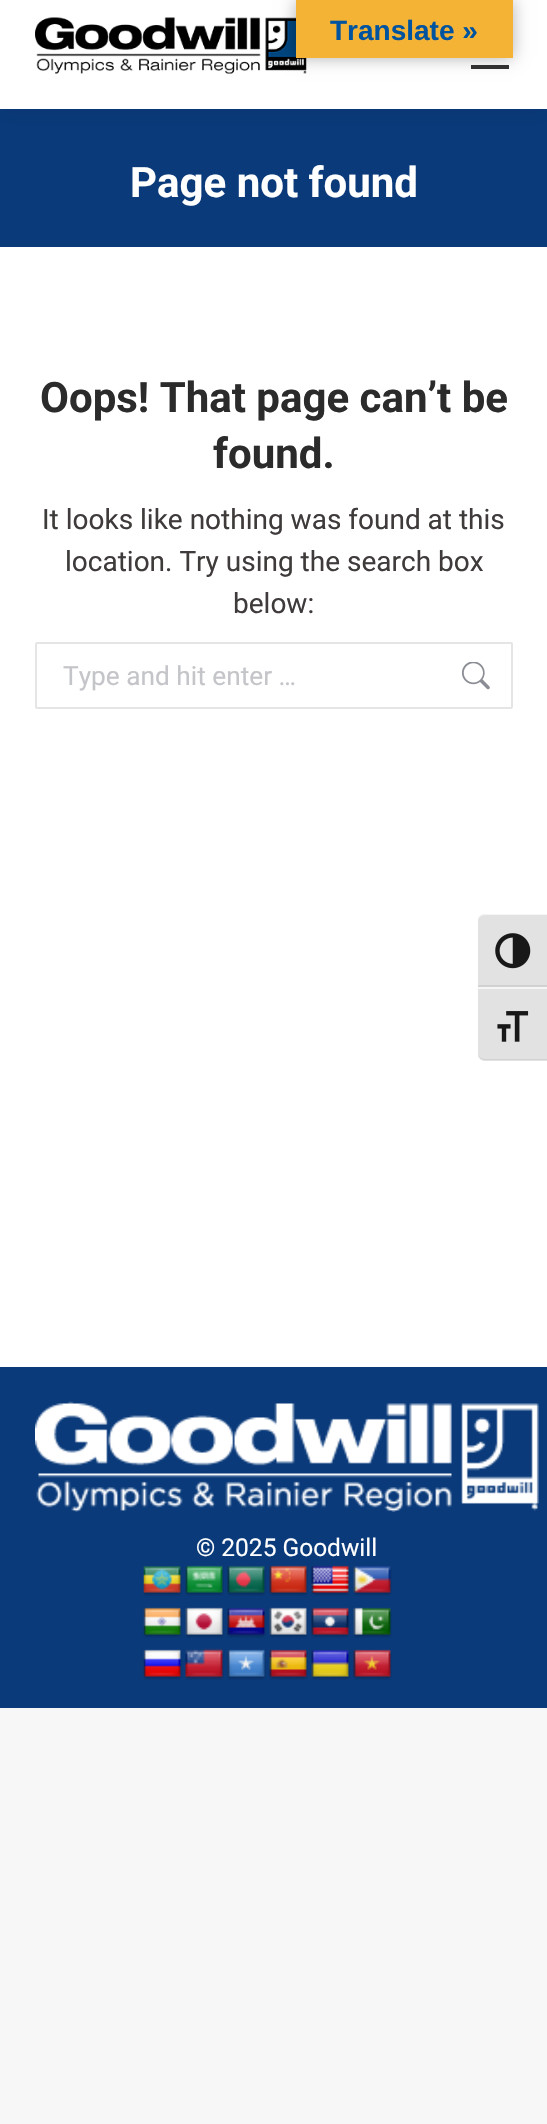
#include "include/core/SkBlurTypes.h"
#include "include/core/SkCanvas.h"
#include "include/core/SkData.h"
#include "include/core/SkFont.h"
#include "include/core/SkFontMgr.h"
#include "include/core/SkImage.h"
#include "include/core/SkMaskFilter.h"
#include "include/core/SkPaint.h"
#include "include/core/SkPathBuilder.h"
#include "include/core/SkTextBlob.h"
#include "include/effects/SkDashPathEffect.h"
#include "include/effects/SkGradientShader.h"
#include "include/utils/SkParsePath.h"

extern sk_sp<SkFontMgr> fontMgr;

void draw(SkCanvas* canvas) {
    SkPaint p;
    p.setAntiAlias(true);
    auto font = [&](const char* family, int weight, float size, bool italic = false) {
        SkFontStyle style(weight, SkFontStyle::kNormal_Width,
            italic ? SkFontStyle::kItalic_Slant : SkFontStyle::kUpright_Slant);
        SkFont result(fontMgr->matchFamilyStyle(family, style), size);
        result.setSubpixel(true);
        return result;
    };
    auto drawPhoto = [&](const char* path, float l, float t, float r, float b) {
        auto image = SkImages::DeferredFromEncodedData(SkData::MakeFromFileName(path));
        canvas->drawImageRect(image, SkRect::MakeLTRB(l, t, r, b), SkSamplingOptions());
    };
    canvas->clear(0xFFF7F7F7);
    p.setColor(0xFF0A3A7A);
    canvas->drawRect(SkRect::MakeLTRB(0, 109, 547, 247), p);
    p.setColor(0x12000000);
    p.setMaskFilter(SkMaskFilter::MakeBlur(kNormal_SkBlurStyle, 13));
    canvas->drawRect(SkRect::MakeLTRB(-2, -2, 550, 110), p);
    p.setMaskFilter(nullptr);
    p.setColor(0xFFFFFFFF);
    canvas->drawRect(SkRect::MakeLTRB(0, 0, 547, 109), p);
    drawPhoto("media/1.png", 35, 17, 307, 74);
    p.setColor(0xFF333333);
    canvas->drawRect(SkRect::MakeLTRB(471, 65, 509, 69), p);
    p.setColor(0x4D000000);
    p.setMaskFilter(SkMaskFilter::MakeBlur(kNormal_SkBlurStyle, 8));
    canvas->drawRect(SkRect::MakeLTRB(296, 0, 513, 58), p);
    p.setMaskFilter(nullptr);
    p.setColor(0xFFF5B335);
    canvas->drawRect(SkRect::MakeLTRB(296, 0, 513, 58), p);
    auto font1 = font("Liberation Sans", 700, 28);
    p.setColor(0xFF00539F);
    canvas->drawString("Translate »", 330, 40, font1, p);
    p.setColor(0xFFFFFFFF);
    canvas->drawRect(SkRect::MakeLTRB(0, 247, 547, 1367), p);
    auto font2 = font("Roboto", 700, 42);
    canvas->drawString("Page not found", 130, 197, font2, p);
    p.setColor(0xFF2B2B2B);
    canvas->drawString("Oops! That page can’t be", 40, 412, font2, p);
    canvas->drawString("found.", 213, 468, font2, p);
    auto font3 = font("Roboto", 400, 28);
    p.setColor(0xFF3F3B3B);
    {
        const struct { const char* s; float x, y; } items[] = {
            {"It looks like nothing was found at this", 42, 529},
            {"location. Try using the search box", 65, 571},
            {"below:", 233, 613},
        };
        for (auto [s, x, y] : items) {
            canvas->drawString(s, x, y, font3, p);
        }
    }
    p.setStyle(SkPaint::kStroke_Style);
    p.setStrokeWidth(2);
    p.setColor(0xFFE5E5E5);
    canvas->drawRoundRect(SkRect::MakeLTRB(36, 643, 512, 708), 1, 1, p);
    auto font4 = font("Roboto", 400, 26.25f);
    p.setStyle(SkPaint::kFill_Style);
    p.setColor(0xFFC4C5C9);
    canvas->drawString("Type and hit enter …", 63, 685, font4, p);
    drawPhoto("media/2.png", 462, 662, 490, 690);
    p.setColor(0xFF0A3A7A);
    canvas->drawRect(SkRect::MakeLTRB(0, 1367, 547, 1708), p);
    drawPhoto("media/3.png", 35, 1401, 539, 1512);
    auto font5 = font("Roboto", 400, 24.5f);
    p.setColor(0xFFFFFFFF);
    canvas->drawString("© 2025 Goodwill", 196, 1556, font5, p);
    drawPhoto("media/4.png", 143, 1566, 182, 1596);
    drawPhoto("media/5.png", 185, 1565, 224, 1596);
    drawPhoto("media/6.png", 227, 1566, 266, 1596);
    drawPhoto("media/7.png", 269, 1565, 308, 1596);
    drawPhoto("media/8.png", 311, 1565, 350, 1596);
    drawPhoto("media/9.png", 353, 1566, 392, 1596);
    drawPhoto("media/10.png", 143, 1607, 182, 1638);
    drawPhoto("media/11.png", 185, 1607, 224, 1638);
    drawPhoto("media/12.png", 227, 1608, 266, 1638);
    drawPhoto("media/13.png", 269, 1607, 308, 1638);
    drawPhoto("media/14.png", 311, 1607, 350, 1638);
    drawPhoto("media/15.png", 353, 1607, 392, 1638);
    drawPhoto("media/16.png", 143, 1649, 182, 1680);
    drawPhoto("media/17.png", 185, 1648, 224, 1680);
    drawPhoto("media/18.png", 227, 1649, 266, 1680);
    drawPhoto("media/19.png", 269, 1649, 308, 1680);
    drawPhoto("media/20.png", 311, 1650, 350, 1680);
    drawPhoto("media/21.png", 353, 1649, 392, 1680);
    p.setColor(0xFFE2E2E2);
    canvas->drawPath(SkPathBuilder().moveTo(485, 914).lineTo(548, 914).lineTo(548, 987).lineTo(478, 987).lineTo(478, 921).cubicTo(478, 917, 481, 914, 485, 914).close().detach(), p);
    p.setColor(0xFFF5F5F5);
    canvas->drawPath(SkPathBuilder().moveTo(485, 914).lineTo(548, 914).lineTo(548, 915).lineTo(485, 915).cubicTo(481, 915, 478, 918, 478, 920).cubicTo(478, 917, 481, 914, 485, 914).close().detach(), p);
    p.setColor(0xFFD2D2D2);
    canvas->drawRect(SkRect::MakeLTRB(478, 985, 547, 987), p);
    drawPhoto("media/22.png", 495, 933, 531, 969);
    p.setColor(0xFFE2E2E2);
    canvas->drawPath(SkPathBuilder().moveTo(478, 987).lineTo(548, 987).lineTo(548, 1061).lineTo(485, 1061).cubicTo(481, 1061, 478, 1058, 478, 1054).close().detach(), p);
    p.setColor(0xFFF5F5F5);
    canvas->drawRect(SkRect::MakeLTRB(478, 987, 547, 989), p);
    p.setColor(0xFFD2D2D2);
    canvas->drawPath(SkPathBuilder().moveTo(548, 1059).lineTo(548, 1060).lineTo(485, 1060).cubicTo(481, 1060, 478, 1057, 478, 1054).cubicTo(478, 1056, 481, 1059, 485, 1059).close().detach(), p);
    drawPhoto("media/23.png", 497, 1011, 529, 1042);
}
